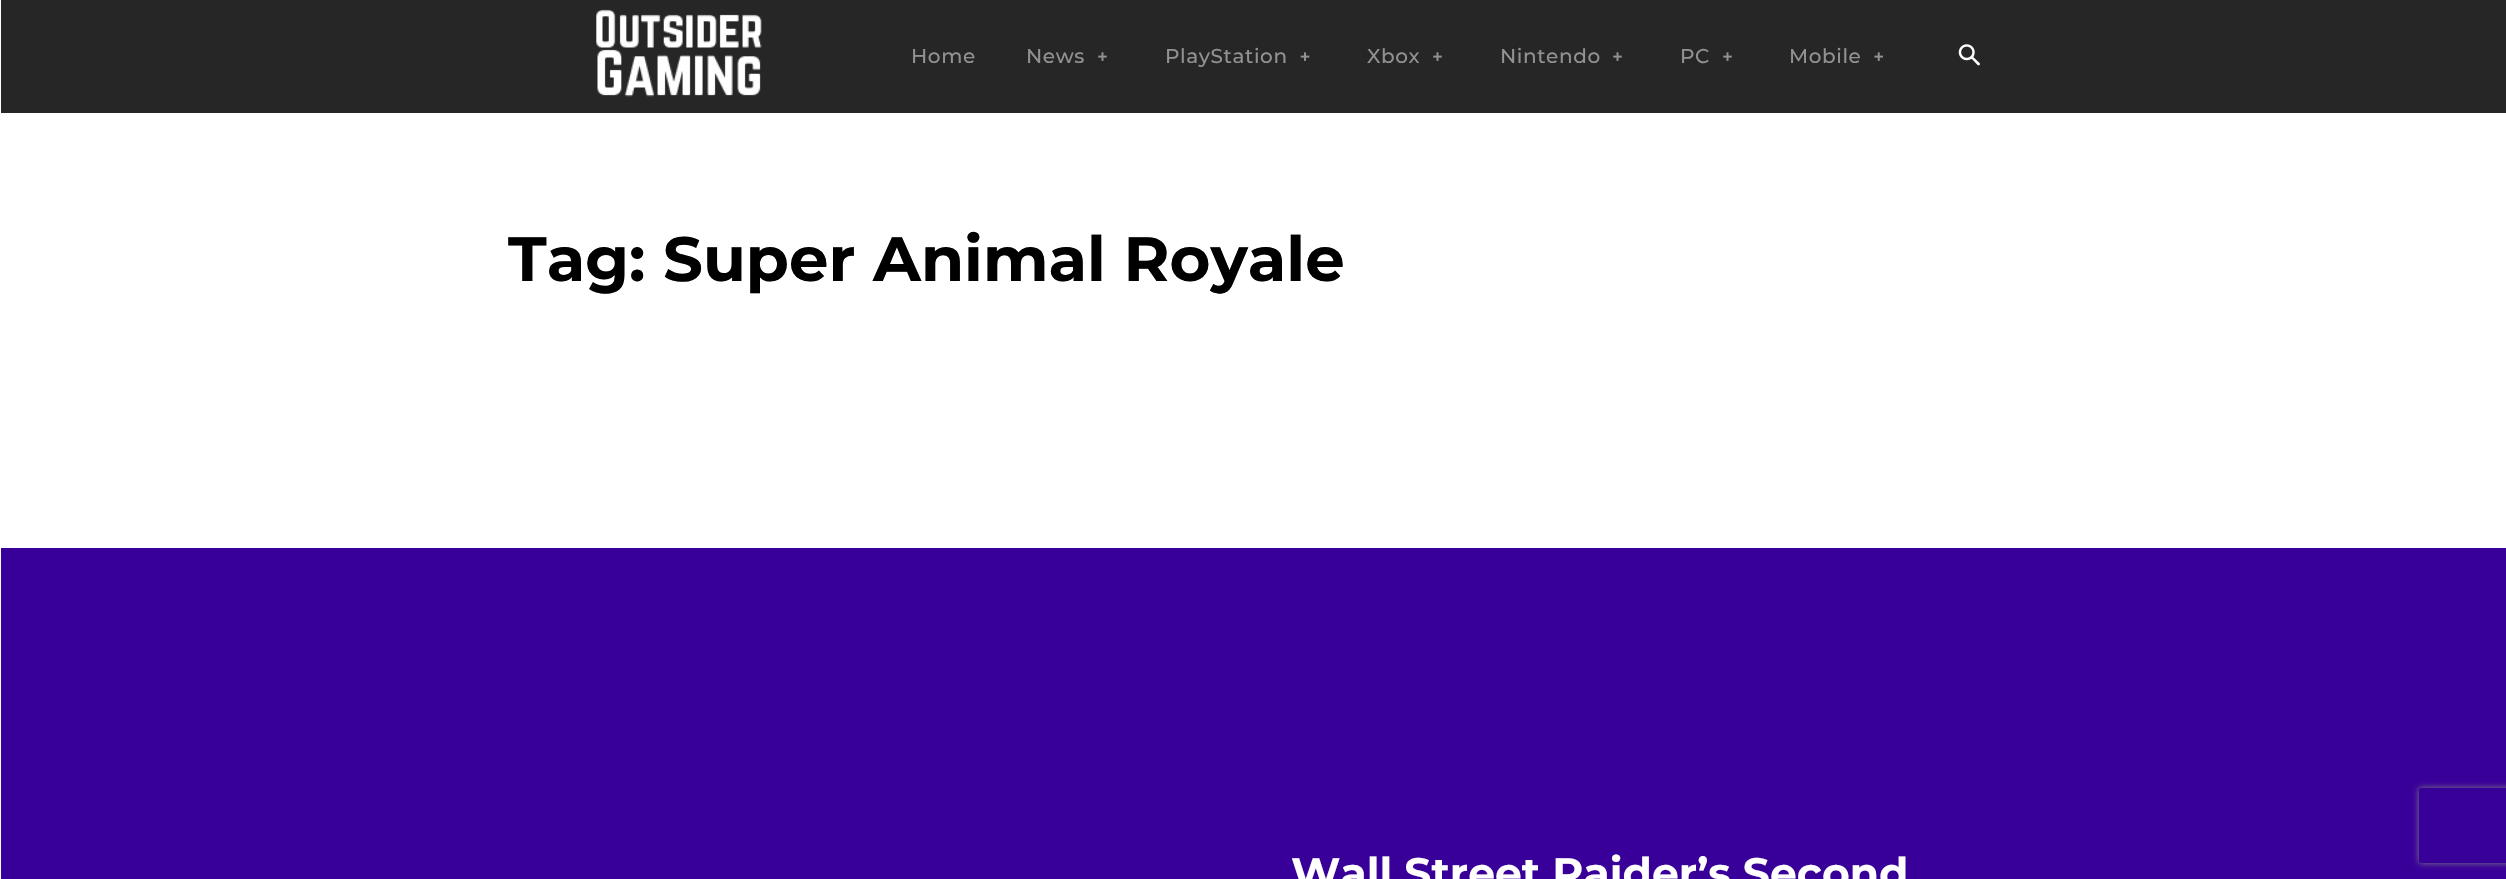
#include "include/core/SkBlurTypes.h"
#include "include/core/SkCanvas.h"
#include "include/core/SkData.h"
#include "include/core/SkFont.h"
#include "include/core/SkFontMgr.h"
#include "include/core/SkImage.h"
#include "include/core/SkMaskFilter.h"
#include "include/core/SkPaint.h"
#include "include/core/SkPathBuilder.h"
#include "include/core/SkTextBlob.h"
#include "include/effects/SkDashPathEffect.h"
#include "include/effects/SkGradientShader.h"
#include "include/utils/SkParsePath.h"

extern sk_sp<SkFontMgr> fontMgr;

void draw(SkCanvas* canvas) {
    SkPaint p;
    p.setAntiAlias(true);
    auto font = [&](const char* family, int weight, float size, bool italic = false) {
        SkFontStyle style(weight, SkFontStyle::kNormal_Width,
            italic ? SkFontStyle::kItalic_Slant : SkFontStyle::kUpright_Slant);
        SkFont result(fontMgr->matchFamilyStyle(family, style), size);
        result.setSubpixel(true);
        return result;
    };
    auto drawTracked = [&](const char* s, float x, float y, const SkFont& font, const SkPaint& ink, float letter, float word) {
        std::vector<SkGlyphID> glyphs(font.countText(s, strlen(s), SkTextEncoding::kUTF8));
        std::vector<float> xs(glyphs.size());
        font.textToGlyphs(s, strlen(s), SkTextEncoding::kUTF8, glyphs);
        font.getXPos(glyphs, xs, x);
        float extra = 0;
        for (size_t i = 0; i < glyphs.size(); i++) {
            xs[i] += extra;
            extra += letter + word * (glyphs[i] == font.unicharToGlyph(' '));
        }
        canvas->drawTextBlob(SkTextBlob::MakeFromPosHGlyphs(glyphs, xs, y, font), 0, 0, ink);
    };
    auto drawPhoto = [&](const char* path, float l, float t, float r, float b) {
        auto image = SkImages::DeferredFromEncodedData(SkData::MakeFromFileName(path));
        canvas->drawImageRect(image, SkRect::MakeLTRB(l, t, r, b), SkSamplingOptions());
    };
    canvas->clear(0xFFFFFFFF);
    p.setColor(0xFF262626);
    canvas->drawRect(SkRect::MakeLTRB(1, 0, 2506, 113), p);
    drawPhoto("media/1.png", 596, 9, 762, 97);
    auto font1 = font("Montserrat", 500, 20);
    p.setColor(0xFF919191);
    drawTracked("Home", 911, 63, font1, p, 0.6f, 0);
    drawTracked("News", 1026, 63, font1, p, 0.6f, 0);
    drawPhoto("media/2.png", 1098, 52, 1107, 61);
    drawTracked("PlayStation", 1165, 63, font1, p, 0.6f, 0);
    drawPhoto("media/3.png", 1300, 52, 1310, 61);
    drawTracked("Xbox", 1367, 63, font1, p, 0.6f, 0);
    drawPhoto("media/2.png", 1433, 52, 1442, 61);
    drawTracked("Nintendo", 1500, 63, font1, p, 0.6f, 0);
    drawPhoto("media/2.png", 1613, 52, 1622, 61);
    drawTracked("PC", 1680, 63, font1, p, 0.6f, 0);
    drawPhoto("media/2.png", 1723, 52, 1732, 61);
    drawTracked("Mobile", 1789, 63, font1, p, 0.6f, 0);
    drawPhoto("media/4.png", 1874, 52, 1883, 61);
    drawPhoto("media/5.png", 1958, 44, 1980, 66);
    auto font2 = font("Montserrat", 700, 62.5f);
    p.setColor(0xFF000000);
    canvas->drawString("Tag: Super Animal Royale", 508, 281, font2, p);
    p.setColor(0xFF390099);
    canvas->drawRect(SkRect::MakeLTRB(1, 548, 2506, 879), p);
    auto font3 = font("Montserrat", 700, 42.5f);
    p.setColor(0xFFFFFFFF);
    canvas->drawString("Wall Street Raider’s Second", 1291, 888, font3, p);
    canvas->save();
    canvas->clipPath(SkPathBuilder(SkPathFillType::kEvenOdd).moveTo(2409, 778).lineTo(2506, 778).lineTo(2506, 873).lineTo(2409, 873).close().moveTo(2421.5f, 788).lineTo(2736.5f, 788).cubicTo(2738, 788, 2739, 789, 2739, 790.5f).lineTo(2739, 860.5f).cubicTo(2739, 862, 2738, 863, 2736.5f, 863).lineTo(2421.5f, 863).cubicTo(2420, 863, 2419, 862, 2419, 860.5f).lineTo(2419, 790.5f).cubicTo(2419, 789, 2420, 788, 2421.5f, 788).close().detach(), true);
    p.setColor(0xFF808080);
    p.setMaskFilter(SkMaskFilter::MakeBlur(kNormal_SkBlurStyle, 3));
    canvas->drawRoundRect(SkRect::MakeLTRB(2419, 788, 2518, 863), 2.5f, 2.5f, p);
    p.setMaskFilter(nullptr);
    canvas->restore();
}
